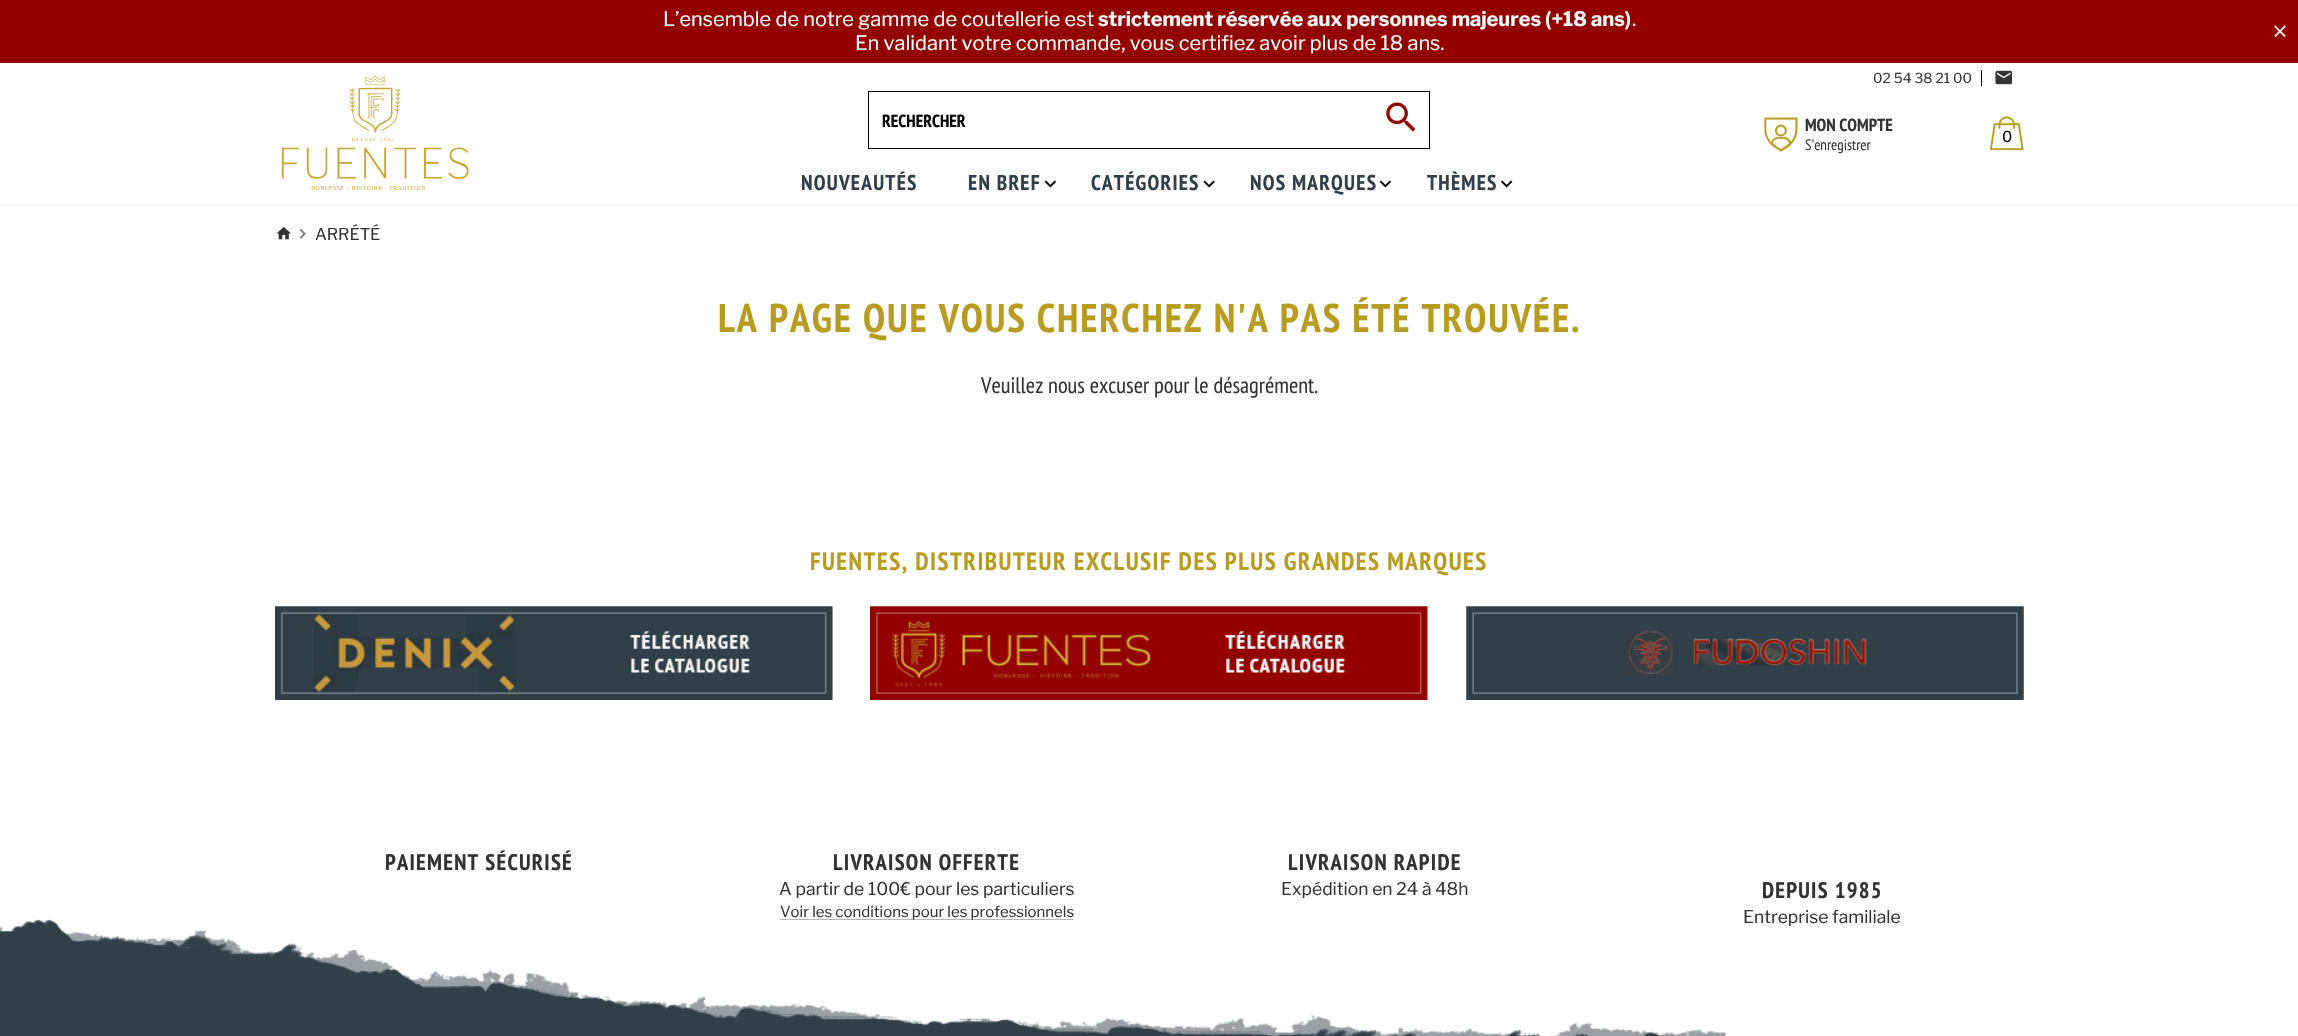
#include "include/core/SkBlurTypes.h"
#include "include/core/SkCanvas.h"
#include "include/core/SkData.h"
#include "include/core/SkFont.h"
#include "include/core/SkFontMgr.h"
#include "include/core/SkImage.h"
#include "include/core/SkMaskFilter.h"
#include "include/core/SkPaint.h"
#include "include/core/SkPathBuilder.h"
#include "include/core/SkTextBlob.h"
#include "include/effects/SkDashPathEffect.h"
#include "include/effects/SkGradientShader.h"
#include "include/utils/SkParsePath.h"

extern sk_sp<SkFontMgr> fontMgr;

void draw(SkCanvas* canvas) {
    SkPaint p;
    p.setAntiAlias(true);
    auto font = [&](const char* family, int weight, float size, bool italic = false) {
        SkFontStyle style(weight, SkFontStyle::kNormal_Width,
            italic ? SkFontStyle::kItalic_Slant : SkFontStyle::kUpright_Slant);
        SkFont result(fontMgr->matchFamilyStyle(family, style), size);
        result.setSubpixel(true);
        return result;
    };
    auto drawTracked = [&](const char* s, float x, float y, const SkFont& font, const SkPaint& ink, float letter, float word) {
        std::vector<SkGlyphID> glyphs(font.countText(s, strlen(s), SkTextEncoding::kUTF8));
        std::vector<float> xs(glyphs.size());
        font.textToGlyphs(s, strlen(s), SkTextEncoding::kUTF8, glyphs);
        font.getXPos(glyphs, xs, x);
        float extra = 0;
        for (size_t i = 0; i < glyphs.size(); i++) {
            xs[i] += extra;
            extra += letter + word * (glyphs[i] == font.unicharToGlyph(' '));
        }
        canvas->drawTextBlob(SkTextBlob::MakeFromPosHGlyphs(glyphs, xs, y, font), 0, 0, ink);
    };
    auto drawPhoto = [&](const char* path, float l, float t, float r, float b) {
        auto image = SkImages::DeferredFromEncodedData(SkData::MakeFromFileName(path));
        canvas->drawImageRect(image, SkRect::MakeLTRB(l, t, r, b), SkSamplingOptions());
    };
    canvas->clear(0xFFFFFFFF);
    p.setColor(0xFF920000);
    canvas->drawRect(SkRect::MakeLTRB(0, 0, 2298, 63), p);
    auto font1 = font("Libre Franklin", 400, 20);
    p.setColor(0xFFFFFFFF);
    canvas->drawString("L’ensemble de notre gamme de coutellerie est", 663, 26, font1, p);
    auto font2 = font("Libre Franklin", 700, 20);
    canvas->drawString("strictement réservée aux personnes majeures (+18 ans)", 1098, 26, font2, p);
    canvas->drawString(".", 1632, 26, font1, p);
    canvas->drawString("En validant votre commande, vous certifiez avoir plus de 18 ans.", 855, 50, font1, p);
    drawPhoto("media/1.png", 2274, 25, 2286, 37);
    p.setColor(0xFFF5F1F0);
    canvas->drawRect(SkRect::MakeLTRB(0, 204, 2298, 205), p);
    drawPhoto("media/2.png", 281, 75, 469, 190);
    p.setStyle(SkPaint::kStroke_Style);
    p.setStrokeWidth(1);
    p.setColor(0xFF000000);
    canvas->drawRect(SkRect::MakeLTRB(868.5f, 91.5f, 1429.5f, 148.5f), p);
    auto font3 = font("PT Sans Narrow", 700, 17.5f);
    p.setStyle(SkPaint::kFill_Style);
    canvas->drawString("RECHERCHER", 882, 127, font3, p);
    drawPhoto("media/3.png", 1386, 102, 1416, 132);
    auto font4 = font("PT Sans Narrow", 700, 21.25f);
    p.setColor(0xFF313F48);
    drawTracked("NOUVEAUTÉS", 801, 190, font4, p, 1.25f, 0);
    drawTracked("EN BREF", 968, 190, font4, p, 1.25f, 0);
    drawPhoto("media/4.png", 1044, 180, 1056, 188);
    drawTracked("CATÉGORIES", 1091, 190, font4, p, 1.25f, 0);
    drawPhoto("media/5.png", 1203, 180, 1215, 188);
    drawTracked("NOS MARQUES", 1250, 190, font4, p, 1.25f, 0);
    drawPhoto("media/4.png", 1379, 180, 1391, 188);
    drawTracked("THÈMES", 1427, 190, font4, p, 1.25f, 0);
    drawPhoto("media/6.png", 1501, 180, 1513, 188);
    auto font5 = font("Libre Franklin", 400, 13.75f);
    p.setColor(0xFF333333);
    canvas->drawString("02 54 38 21 00", 1873, 83, font5, p);
    p.setColor(0xFF000000);
    canvas->drawRect(SkRect::MakeLTRB(1981, 70, 1982, 86), p);
    drawPhoto("media/7.png", 1995, 70, 2013, 85);
    drawPhoto("media/8.png", 1764, 117, 1798, 152);
    p.setColor(0xFF333333);
    canvas->drawString("MON COMPTE", 1805, 131, font3, p);
    auto font6 = font("PT Sans Narrow", 400, 15);
    canvas->drawString("S'enregistrer", 1805, 150, font6, p);
    drawPhoto("media/9.png", 1990, 116, 2024, 150);
    auto font7 = font("Libre Franklin", 400, 15);
    p.setColor(0xFF000000);
    canvas->drawString("0", 2002, 142, font7, p);
    drawPhoto("media/10.png", 276, 227, 291, 240);
    drawPhoto("media/11.png", 299, 228, 306, 239);
    auto font8 = font("Libre Franklin", 400, 16.25f);
    p.setColor(0xFF333333);
    canvas->drawString("ARRÉTÉ", 315, 240, font8, p);
    auto font9 = font("PT Sans Narrow", 700, 40);
    p.setColor(0xFFB89C21);
    drawTracked("LA PAGE QUE VOUS CHERCHEZ N'A PAS ÉTÉ TROUVÉE.", 718, 332, font9, p, 1.9f, 0);
    auto font10 = font("PT Sans Narrow", 400, 22.5f);
    p.setColor(0xFF333333);
    canvas->drawString("Veuillez nous excuser pour le désagrément.", 981, 393, font10, p);
    auto font11 = font("PT Sans Narrow", 700, 25);
    p.setColor(0xFFB89C21);
    drawTracked("FUENTES, DISTRIBUTEUR EXCLUSIF DES PLUS GRANDES MARQUES", 810, 570, font11, p, 1.5f, 0);
    drawPhoto("media/12.png", 275, 606, 833, 700);
    drawPhoto("media/13.png", 870, 606, 1428, 700);
    drawPhoto("media/14.png", 1466, 606, 2024, 700);
    auto font12 = font("PT Sans Narrow", 700, 22.5f);
    p.setColor(0xFF333333);
    drawTracked("PAIEMENT SÉCURISÉ", 385, 870, font12, p, 1.25f, 0);
    drawTracked("LIVRAISON OFFERTE", 833, 870, font12, p, 1.25f, 0);
    auto font13 = font("Libre Franklin", 400, 17.5f);
    canvas->drawString("A partir de 100€ pour les particuliers", 779, 895, font13, p);
    p.setColor(0xFFB1B6BA);
    canvas->drawRect(SkRect::MakeLTRB(780, 919, 1074, 920), p);
    p.setColor(0xFF333333);
    canvas->drawString("Voir les conditions pour les professionnels", 780, 917, font7, p);
    drawTracked("LIVRAISON RAPIDE", 1288, 870, font12, p, 1.25f, 0);
    canvas->drawString("Expédition en 24 à 48h", 1281, 895, font13, p);
    drawTracked("DEPUIS 1985", 1762, 898, font12, p, 1.25f, 0);
    canvas->drawString("Entreprise familiale", 1743, 923, font13, p);
    drawPhoto("media/15.png", 0, 919, 1727, 1036);
}
